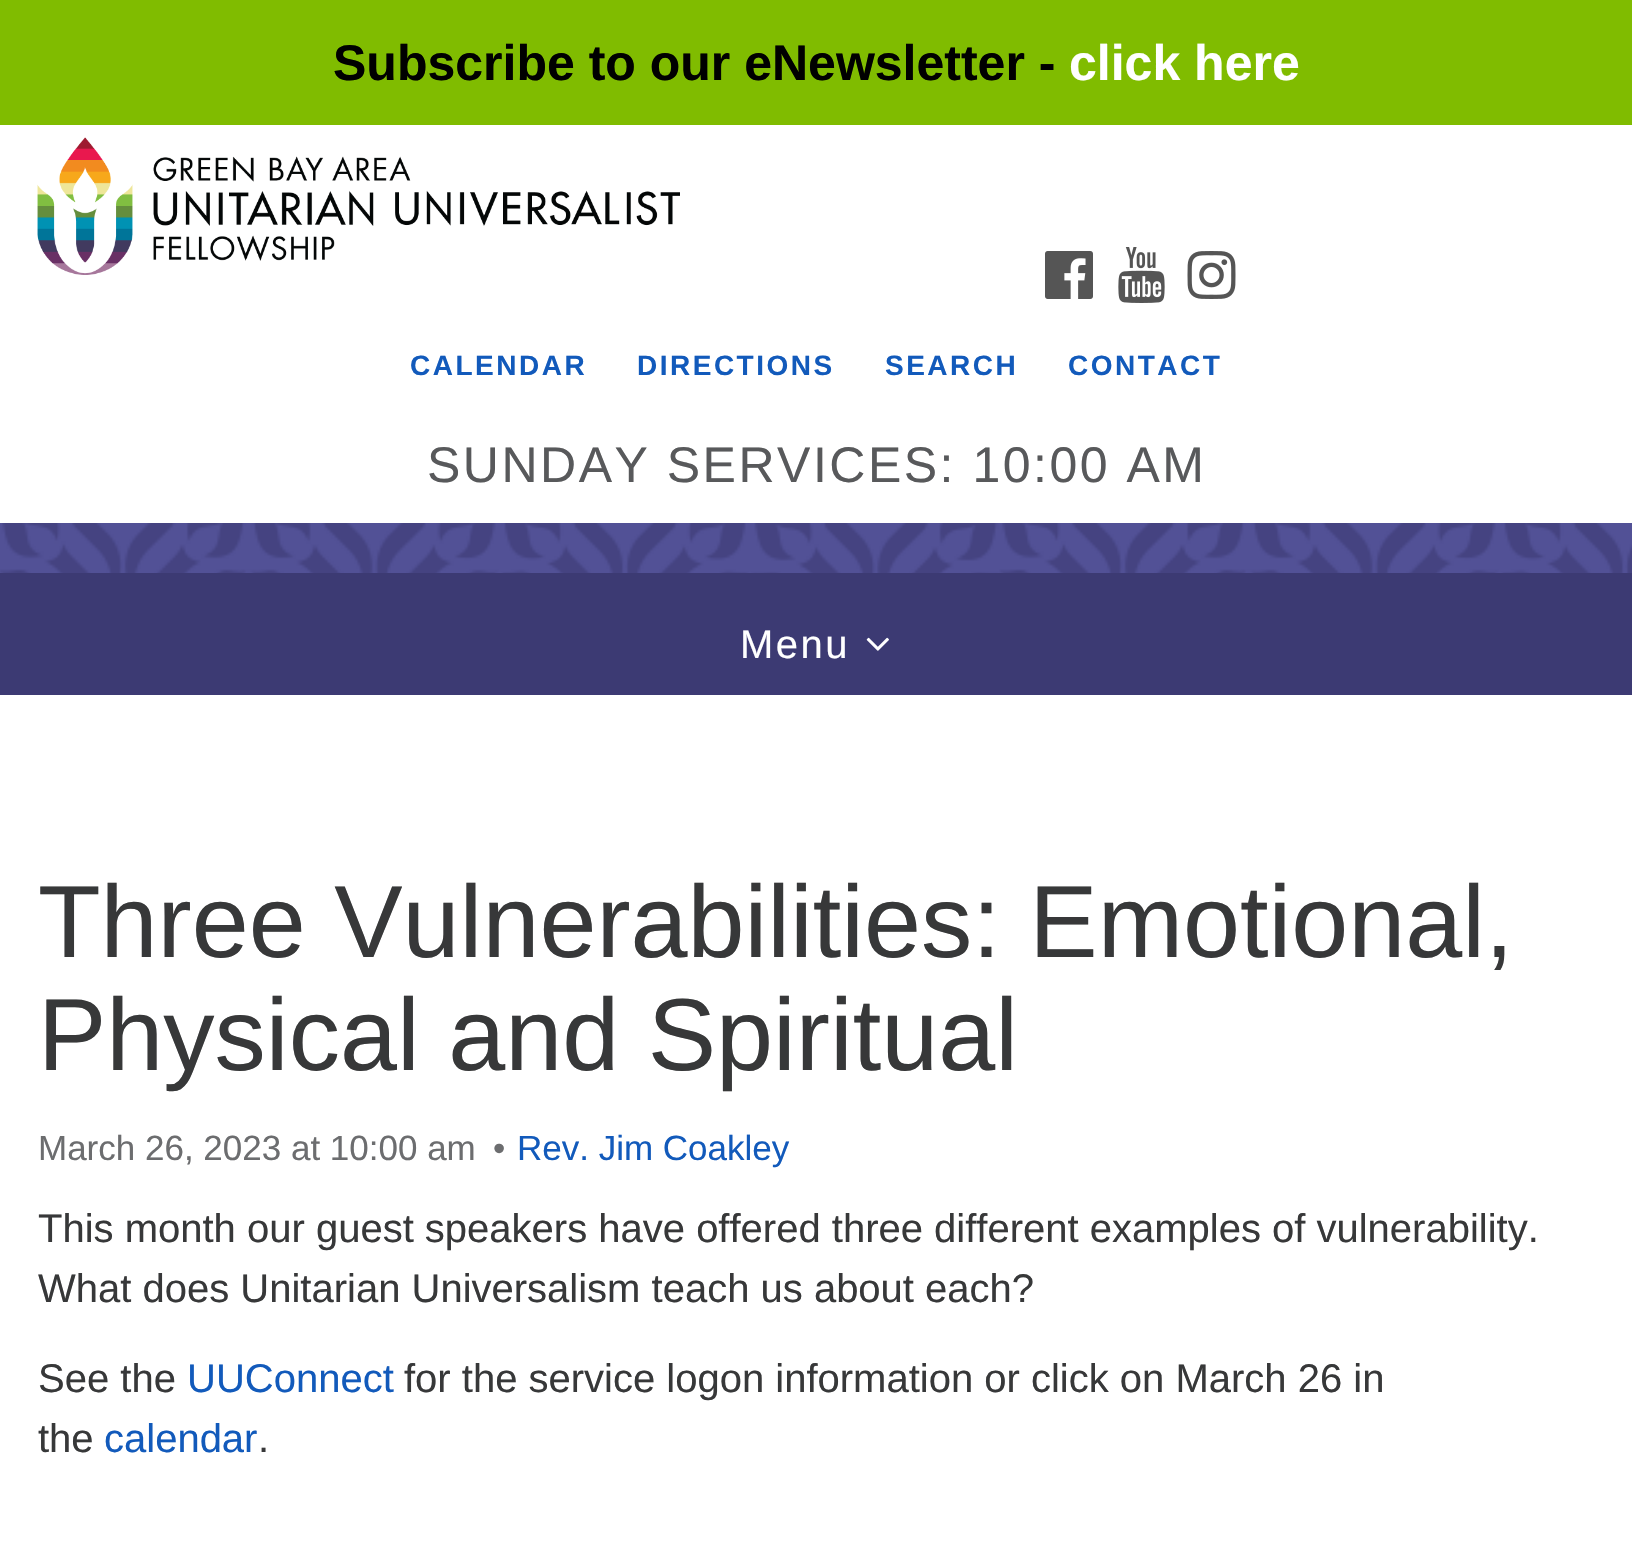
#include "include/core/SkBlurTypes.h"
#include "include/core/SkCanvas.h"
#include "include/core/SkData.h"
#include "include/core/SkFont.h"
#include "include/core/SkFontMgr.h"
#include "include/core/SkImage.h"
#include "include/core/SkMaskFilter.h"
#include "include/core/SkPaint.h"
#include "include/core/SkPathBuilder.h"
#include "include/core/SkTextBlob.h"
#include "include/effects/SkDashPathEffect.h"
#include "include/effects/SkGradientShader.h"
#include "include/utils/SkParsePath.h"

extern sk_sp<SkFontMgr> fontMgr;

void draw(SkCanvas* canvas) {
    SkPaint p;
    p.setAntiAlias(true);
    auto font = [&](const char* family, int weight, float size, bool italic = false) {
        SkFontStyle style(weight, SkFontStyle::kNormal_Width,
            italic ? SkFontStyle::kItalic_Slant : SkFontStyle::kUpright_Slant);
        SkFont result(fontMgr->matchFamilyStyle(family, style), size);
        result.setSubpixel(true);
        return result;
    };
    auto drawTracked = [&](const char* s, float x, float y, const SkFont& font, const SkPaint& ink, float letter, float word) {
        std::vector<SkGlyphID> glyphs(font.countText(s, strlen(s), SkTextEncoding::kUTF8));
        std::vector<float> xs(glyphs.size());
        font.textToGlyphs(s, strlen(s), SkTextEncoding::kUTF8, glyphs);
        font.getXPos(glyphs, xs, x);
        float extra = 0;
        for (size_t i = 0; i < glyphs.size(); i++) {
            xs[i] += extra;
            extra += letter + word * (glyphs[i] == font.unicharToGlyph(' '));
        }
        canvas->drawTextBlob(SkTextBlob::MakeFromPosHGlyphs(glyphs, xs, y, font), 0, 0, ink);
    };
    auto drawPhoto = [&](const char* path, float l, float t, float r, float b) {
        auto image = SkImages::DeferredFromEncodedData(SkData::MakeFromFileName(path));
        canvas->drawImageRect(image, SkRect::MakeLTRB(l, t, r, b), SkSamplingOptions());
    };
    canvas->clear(0xFFFFFFFF);
    drawPhoto("media/1.png", 0, 523, 1632, 573);
    p.setColor(0xFF80BC00);
    canvas->drawRect(SkRect::MakeLTRB(0, 0, 1632, 125), p);
    auto font1 = font("Liberation Sans", 700, 50);
    p.setColor(0xFF000000);
    canvas->drawString("Subscribe to our eNewsletter -", 333, 80, font1, p);
    p.setColor(0xFFFFFFFF);
    canvas->drawString("click here", 1069, 80, font1, p);
    drawPhoto("media/2.png", 37, 137, 680, 275);
    drawPhoto("media/3.png", 1045, 251, 1093, 299);
    drawPhoto("media/4.png", 1118, 247, 1165, 303);
    drawPhoto("media/5.png", 1187, 251, 1236, 299);
    auto font2 = font("Liberation Sans", 700, 28);
    p.setColor(0xFF125ABB);
    {
        const struct { const char* s; float x, y; } items[] = {
            {"CALENDAR", 410, 375},
            {"DIRECTIONS", 637, 375},
            {"SEARCH", 885, 375},
            {"CONTACT", 1068, 375},
        };
        for (auto [s, x, y] : items) {
            drawTracked(s, x, y, font2, p, 2.5f, 0);
        }
    }
    auto font3 = font("Liberation Sans", 400, 50);
    p.setColor(0xFF58595B);
    drawTracked("SUNDAY SERVICES: 10:00 AM", 427, 482, font3, p, 2.5f, 0);
    p.setColor(0xFF3C3A73);
    canvas->drawRect(SkRect::MakeLTRB(0, 573, 1632, 695), p);
    auto font4 = font("Liberation Sans", 400, 40);
    p.setColor(0xFFFFFFFF);
    drawTracked("Menu", 740, 658, font4, p, 2.5f, 0);
    drawPhoto("media/6.png", 866, 637, 889, 651);
    auto font5 = font("Liberation Sans", 400, 102.5f);
    p.setColor(0xFF373839);
    canvas->drawString("Three Vulnerabilities: Emotional,", 38, 957, font5, p);
    canvas->drawString("Physical and Spiritual", 38, 1070, font5, p);
    auto font6 = font("Liberation Sans", 400, 35);
    p.setColor(0xFF6C6D6F);
    canvas->drawString("March 26, 2023 at 10:00 am", 38, 1160, font6, p);
    canvas->drawString("•", 493, 1160, font6, p);
    p.setColor(0xFF125ABB);
    canvas->drawString("Rev. Jim Coakley", 517, 1160, font6, p);
    p.setColor(0xFF373839);
    {
        const struct { const char* s; float x, y; } items[] = {
            {"This month our guest speakers have offered three different examples of vulnerability.", 38, 1242},
            {"What does Unitarian Universalism teach us about each?", 38, 1302},
            {"See the", 38, 1392},
        };
        for (auto [s, x, y] : items) {
            canvas->drawString(s, x, y, font4, p);
        }
    }
    p.setColor(0xFF125ABB);
    canvas->drawString("UUConnect", 187, 1392, font4, p);
    p.setColor(0xFF373839);
    canvas->drawString("for the service logon information or click on March 26 in", 404, 1392, font4, p);
    canvas->drawString("the", 38, 1452, font4, p);
    p.setColor(0xFF125ABB);
    canvas->drawString("calendar", 104, 1452, font4, p);
    p.setColor(0xFF373839);
    canvas->drawString(".", 258, 1452, font4, p);
}
